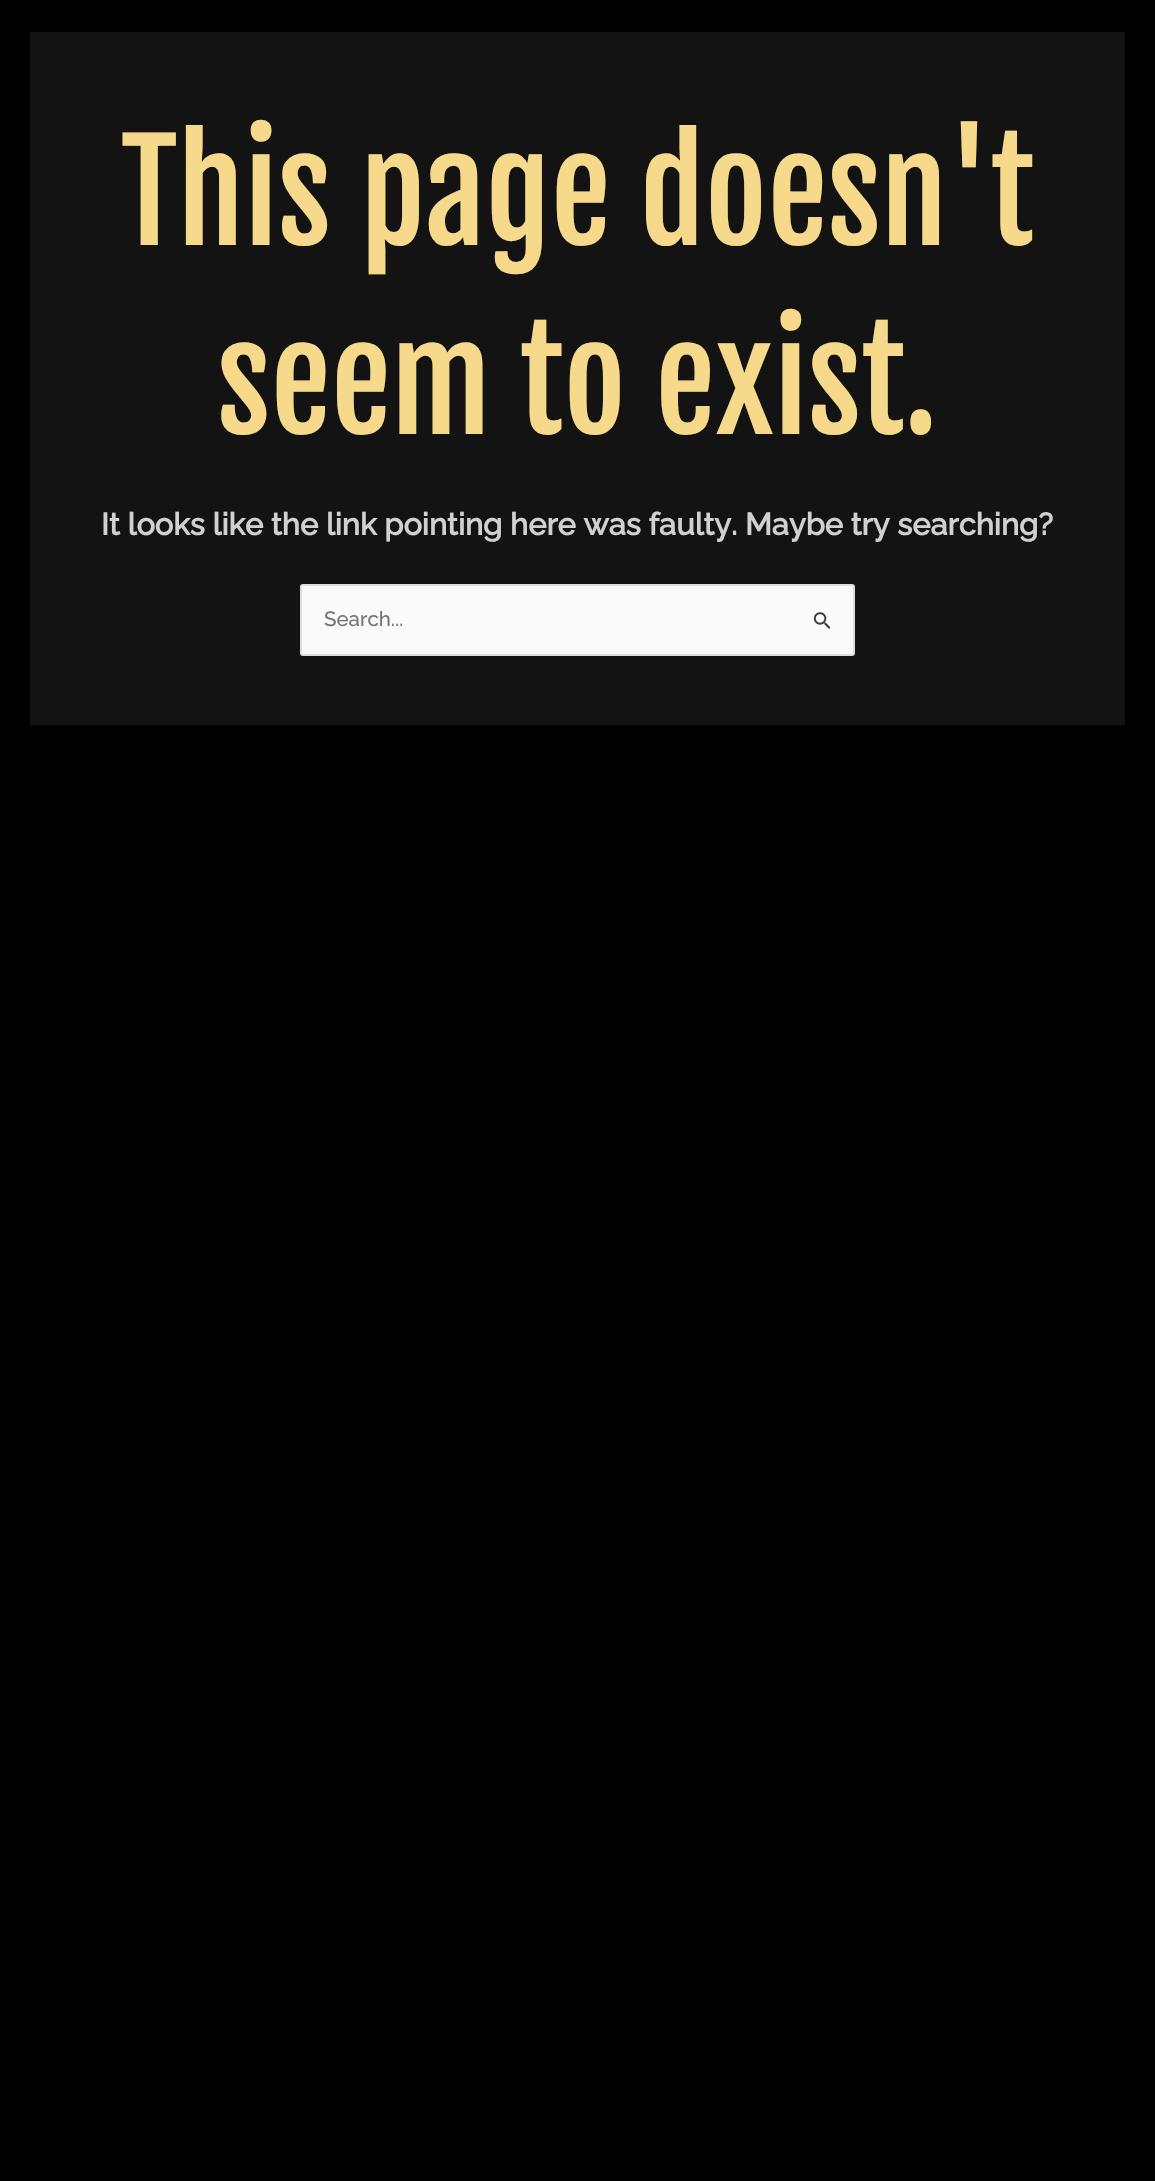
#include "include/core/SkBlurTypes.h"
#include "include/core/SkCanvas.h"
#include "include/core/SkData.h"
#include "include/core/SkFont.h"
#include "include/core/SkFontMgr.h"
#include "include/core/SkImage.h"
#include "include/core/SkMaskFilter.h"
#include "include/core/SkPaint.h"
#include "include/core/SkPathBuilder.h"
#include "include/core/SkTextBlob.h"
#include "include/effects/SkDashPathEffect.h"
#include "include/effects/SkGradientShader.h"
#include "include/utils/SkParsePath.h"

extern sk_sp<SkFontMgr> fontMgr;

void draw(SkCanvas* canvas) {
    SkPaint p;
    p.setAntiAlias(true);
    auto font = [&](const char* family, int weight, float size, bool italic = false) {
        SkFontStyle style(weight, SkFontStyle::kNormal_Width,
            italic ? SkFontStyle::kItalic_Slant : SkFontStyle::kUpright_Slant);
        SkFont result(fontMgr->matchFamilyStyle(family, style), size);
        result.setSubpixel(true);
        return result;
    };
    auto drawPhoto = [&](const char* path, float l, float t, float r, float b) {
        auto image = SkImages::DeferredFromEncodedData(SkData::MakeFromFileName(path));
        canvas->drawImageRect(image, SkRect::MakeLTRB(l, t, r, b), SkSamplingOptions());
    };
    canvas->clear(0xFF000000);
    p.setColor(0xFF131313);
    canvas->drawRect(SkRect::MakeLTRB(30, 32, 1125, 725), p);
    auto font1 = font("Fjalla One", 400, 135);
    p.setColor(0xFFF6D98A);
    canvas->drawString("This page doesn't", 121, 245, font1, p);
    canvas->drawString("seem to exist.", 217, 434, font1, p);
    auto font2 = font("Raleway", 700, 30.75f);
    p.setColor(0xFFD0D0D0);
    canvas->drawString("It looks like the link pointing here was faulty. Maybe try searching?", 101, 535, font2, p);
    p.setColor(0xFFFAFAFA);
    canvas->drawRoundRect(SkRect::MakeLTRB(301, 585, 854, 655), 2, 2, p);
    p.setStyle(SkPaint::kStroke_Style);
    p.setStrokeWidth(2);
    p.setColor(0xFFDDDDDD);
    canvas->drawRoundRect(SkRect::MakeLTRB(301, 585, 854, 655), 2, 2, p);
    auto font3 = font("Raleway", 100, 20.5f);
    p.setStyle(SkPaint::kFill_Style);
    p.setColor(0xFF757575);
    canvas->drawString("Search...", 324, 626, font3, p);
    drawPhoto("media/1.png", 813, 612, 830, 629);
}
